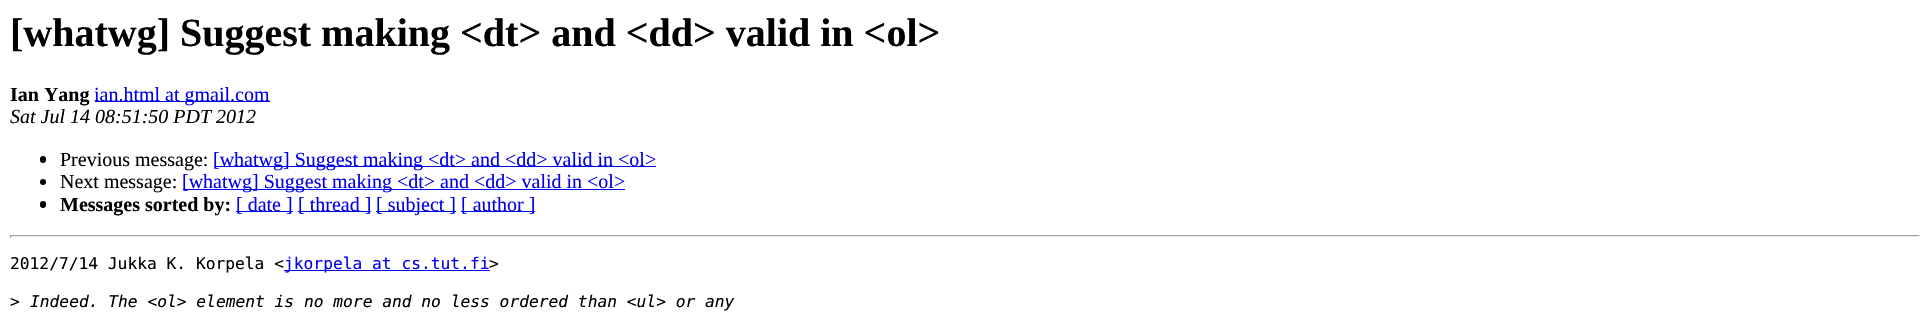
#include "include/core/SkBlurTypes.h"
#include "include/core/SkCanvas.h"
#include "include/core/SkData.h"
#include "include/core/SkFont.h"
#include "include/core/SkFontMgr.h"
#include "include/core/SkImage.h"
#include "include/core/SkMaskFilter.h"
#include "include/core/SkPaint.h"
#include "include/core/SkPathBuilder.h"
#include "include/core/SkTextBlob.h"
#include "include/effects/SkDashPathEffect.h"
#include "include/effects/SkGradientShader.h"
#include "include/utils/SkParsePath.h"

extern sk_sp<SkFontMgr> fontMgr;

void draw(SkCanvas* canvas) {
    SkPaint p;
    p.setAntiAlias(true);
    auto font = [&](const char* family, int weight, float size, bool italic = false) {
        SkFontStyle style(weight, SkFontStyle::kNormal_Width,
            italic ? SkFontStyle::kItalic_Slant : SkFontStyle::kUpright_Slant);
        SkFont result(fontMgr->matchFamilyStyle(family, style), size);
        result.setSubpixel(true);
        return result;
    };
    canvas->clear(0xFFFFFFFF);
    auto font1 = font("Liberation Serif", 700, 40);
    p.setColor(0xFF000000);
    canvas->drawString("[whatwg] Suggest making <dt> and <dd> valid in <ol>", 10, 46, font1, p);
    auto font2 = font("Liberation Serif", 700, 20);
    canvas->drawString("Ian Yang", 10, 101, font2, p);
    p.setColor(0xFF0000EE);
    canvas->drawRect(SkRect::MakeLTRB(95, 101, 270, 102), p);
    auto font3 = font("Liberation Serif", 400, 20);
    canvas->drawString("ian.html at gmail.com", 94, 101, font3, p);
    auto font4 = font("Liberation Serif", 400, 20, true);
    p.setColor(0xFF000000);
    canvas->drawString("Sat Jul 14 08:51:50 PDT 2012", 10, 123, font4, p);
    canvas->drawRoundRect(SkRect::MakeLTRB(40, 156, 46, 163), 3, 3, p);
    canvas->drawString("Previous message:", 60, 166, font3, p);
    p.setColor(0xFF0000EE);
    canvas->drawRect(SkRect::MakeLTRB(214, 166, 656, 167), p);
    canvas->drawString("[whatwg] Suggest making <dt> and <dd> valid in <ol>", 213, 166, font3, p);
    p.setColor(0xFF000000);
    canvas->drawCircle(43, 182, 3, p);
    canvas->drawString("Next message:", 60, 188, font3, p);
    p.setColor(0xFF0000EE);
    canvas->drawRect(SkRect::MakeLTRB(183, 189, 625, 190), p);
    canvas->drawString("[whatwg] Suggest making <dt> and <dd> valid in <ol>", 182, 188, font3, p);
    p.setColor(0xFF000000);
    canvas->drawRoundRect(SkRect::MakeLTRB(40, 201, 46, 208), 3, 3, p);
    canvas->drawString("Messages sorted by:", 60, 211, font2, p);
    p.setColor(0xFF0000EE);
    canvas->drawRect(SkRect::MakeLTRB(236, 211, 293, 212), p);
    canvas->drawString("[ date ]", 236, 211, font3, p);
    canvas->drawRect(SkRect::MakeLTRB(298, 211, 371, 212), p);
    canvas->drawString("[ thread ]", 298, 211, font3, p);
    canvas->drawRect(SkRect::MakeLTRB(376, 211, 456, 212), p);
    canvas->drawString("[ subject ]", 376, 211, font3, p);
    canvas->drawRect(SkRect::MakeLTRB(461, 211, 535, 212), p);
    canvas->drawString("[ author ]", 461, 211, font3, p);
    {
        const struct { float l, t, r, b; SkColor color; } items[] = {
            {10, 235, 1920, 236, 0xFF9F9F9F},
            {1919, 235, 1920, 238, 0xFFEEEEEE},
            {10, 236, 1920, 237, 0xFFEEEEEE},
            {10, 235, 11, 238, 0xFF9F9F9F},
        };
        for (auto [l, t, r, b, color] : items) {
            p.setColor(color);
            canvas->drawRect(SkRect::MakeLTRB(l, t, r, b), p);
        }
    }
    auto font5 = font("DejaVu Sans Mono", 400, 16.25f);
    p.setColor(0xFF000000);
    canvas->drawString("2012/7/14 Jukka K. Korpela <", 10, 269, font5, p);
    p.setColor(0xFF0000EE);
    canvas->drawRect(SkRect::MakeLTRB(284, 270, 490, 271), p);
    canvas->drawString("jkorpela at cs.tut.fi", 284, 269, font5, p);
    p.setColor(0xFF000000);
    canvas->drawString(">", 489, 269, font5, p);
    canvas->drawString(">", 10, 307, font5, p);
    auto font6 = font("DejaVu Sans Mono", 400, 16.25f, true);
    canvas->drawString("Indeed. The <ol> element is no more and no less ordered than <ul> or any", 30, 307, font6, p);
}
